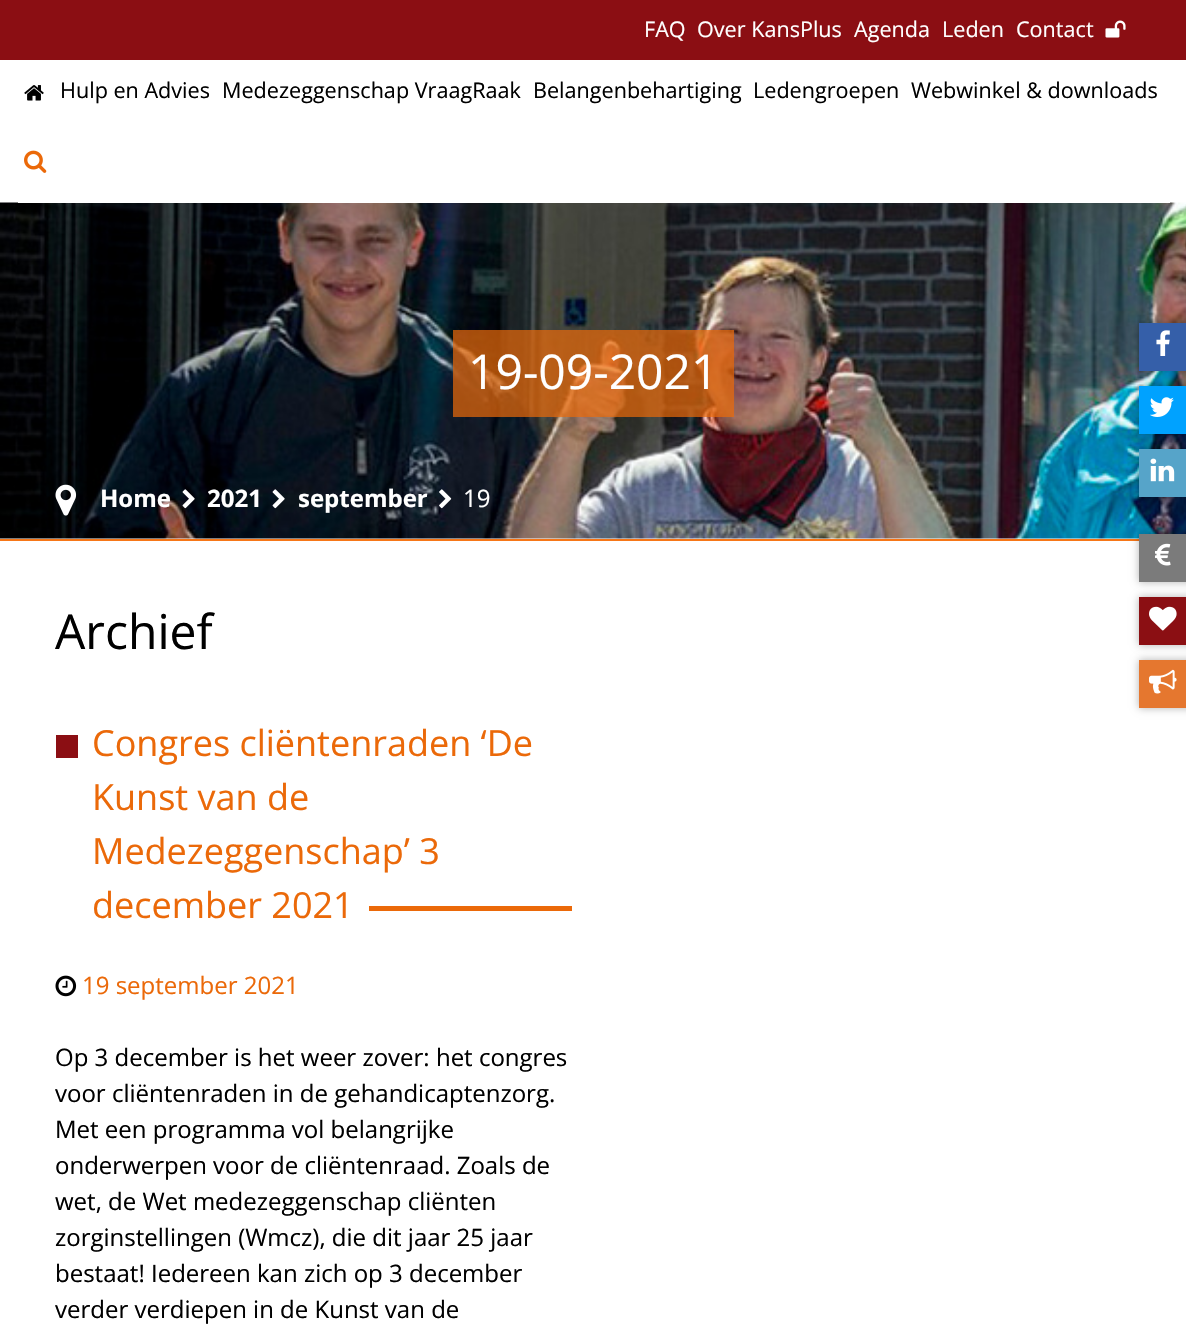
#include "include/core/SkBlurTypes.h"
#include "include/core/SkCanvas.h"
#include "include/core/SkData.h"
#include "include/core/SkFont.h"
#include "include/core/SkFontMgr.h"
#include "include/core/SkImage.h"
#include "include/core/SkMaskFilter.h"
#include "include/core/SkPaint.h"
#include "include/core/SkPathBuilder.h"
#include "include/core/SkTextBlob.h"
#include "include/effects/SkDashPathEffect.h"
#include "include/effects/SkGradientShader.h"
#include "include/utils/SkParsePath.h"

extern sk_sp<SkFontMgr> fontMgr;

void draw(SkCanvas* canvas) {
    SkPaint p;
    p.setAntiAlias(true);
    auto font = [&](const char* family, int weight, float size, bool italic = false) {
        SkFontStyle style(weight, SkFontStyle::kNormal_Width,
            italic ? SkFontStyle::kItalic_Slant : SkFontStyle::kUpright_Slant);
        SkFont result(fontMgr->matchFamilyStyle(family, style), size);
        result.setSubpixel(true);
        return result;
    };
    auto drawPhoto = [&](const char* path, float l, float t, float r, float b) {
        auto image = SkImages::DeferredFromEncodedData(SkData::MakeFromFileName(path));
        canvas->drawImageRect(image, SkRect::MakeLTRB(l, t, r, b), SkSamplingOptions());
    };
    canvas->clear(0xFFFFFFFF);
    canvas->save();
    canvas->clipPath(SkPathBuilder(SkPathFillType::kEvenOdd).moveTo(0, 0).lineTo(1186, 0).lineTo(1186, 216).lineTo(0, 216).close().moveTo(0, -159).lineTo(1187, -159).lineTo(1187, 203).lineTo(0, 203).close().detach(), true);
    p.setColor(0x4D000000);
    p.setMaskFilter(SkMaskFilter::MakeBlur(kNormal_SkBlurStyle, 4));
    canvas->drawRect(SkRect::MakeLTRB(0, -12, 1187, 203), p);
    p.setMaskFilter(nullptr);
    canvas->restore();
    drawPhoto("media/4.png", 0, 202, 1186, 539);
    {
        const struct { float l, t, r, b; SkColor color; } items[] = {
            {18, 202, 1170, 203, 0xFFFFFFFF},
            {0, 0, 18, 60, 0xFF8B0E13},
            {18, 0, 1186, 60, 0xFF8B0E13},
        };
        for (auto [l, t, r, b, color] : items) {
            p.setColor(color);
            canvas->drawRect(SkRect::MakeLTRB(l, t, r, b), p);
        }
    }
    auto font1 = font("Open Sans", 400, 21.6f);
    p.setColor(0xFFFFFFFF);
    {
        const struct { const char* s; float x, y; } items[] = {
            {"FAQ", 644, 37},
            {"Over KansPlus", 697, 37},
            {"Agenda", 854, 37},
            {"Leden", 942, 37},
            {"Contact", 1016, 37},
        };
        for (auto [s, x, y] : items) {
            canvas->drawString(s, x, y, font1, p);
        }
    }
    drawPhoto("media/1.png", 1105, 20, 1126, 38);
    drawPhoto("media/2.png", 24, 85, 44, 101);
    p.setColor(0xFF000000);
    {
        const struct { const char* s; float x, y; } items[] = {
            {"Hulp en Advies", 60, 98},
            {"Medezeggenschap VraagRaak", 222, 98},
            {"Belangenbehartiging", 533, 98},
            {"Ledengroepen", 753, 98},
            {"Webwinkel & downloads", 911, 98},
        };
        for (auto [s, x, y] : items) {
            canvas->drawString(s, x, y, font1, p);
        }
    }
    drawPhoto("media/3.png", 24, 150, 47, 173);
    p.setColor(0xB3EB6909);
    canvas->drawRect(SkRect::MakeLTRB(453, 330, 734, 417), p);
    auto font2 = font("Open Sans", 400, 48);
    p.setColor(0xFFFFFFFF);
    canvas->drawString("19-09-2021", 468, 389, font2, p);
    drawPhoto("media/5.png", 55, 484, 77, 516);
    auto font3 = font("Open Sans", 700, 24);
    canvas->drawString("Home", 100, 507, font3, p);
    drawPhoto("media/6.png", 182, 489, 195, 509);
    canvas->drawString("2021", 207, 507, font3, p);
    drawPhoto("media/7.png", 272, 489, 285, 509);
    canvas->drawString("september", 298, 507, font3, p);
    drawPhoto("media/8.png", 439, 489, 452, 509);
    auto font4 = font("Open Sans", 400, 24);
    canvas->drawString("19", 463, 507, font4, p);
    p.setColor(0x4D000000);
    p.setMaskFilter(SkMaskFilter::MakeBlur(kNormal_SkBlurStyle, 4));
    canvas->drawRect(SkRect::MakeLTRB(1139, 323, 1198, 371), p);
    p.setMaskFilter(nullptr);
    p.setColor(0xFF355FA9);
    canvas->drawRect(SkRect::MakeLTRB(1139, 323, 1186, 371), p);
    drawPhoto("media/9.png", 1156, 330, 1170, 356);
    p.setColor(0x4D000000);
    p.setMaskFilter(SkMaskFilter::MakeBlur(kNormal_SkBlurStyle, 4));
    canvas->drawRect(SkRect::MakeLTRB(1139, 386, 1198, 434), p);
    p.setMaskFilter(nullptr);
    p.setColor(0xFF00A2FF);
    canvas->drawRect(SkRect::MakeLTRB(1139, 386, 1186, 434), p);
    drawPhoto("media/10.png", 1150, 397, 1174, 417);
    p.setColor(0x4D000000);
    p.setMaskFilter(SkMaskFilter::MakeBlur(kNormal_SkBlurStyle, 4));
    canvas->drawRect(SkRect::MakeLTRB(1139, 449, 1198, 497), p);
    p.setMaskFilter(nullptr);
    p.setColor(0xFF56A4C9);
    canvas->drawRect(SkRect::MakeLTRB(1139, 449, 1186, 497), p);
    drawPhoto("media/11.png", 1150, 458, 1175, 482);
    p.setColor(0xFFF67617);
    canvas->drawRect(SkRect::MakeLTRB(0, 539, 1139, 541), p);
    p.setColor(0x4D000000);
    p.setMaskFilter(SkMaskFilter::MakeBlur(kNormal_SkBlurStyle, 4));
    canvas->drawRect(SkRect::MakeLTRB(1139, 534, 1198, 582), p);
    p.setMaskFilter(nullptr);
    p.setColor(0xFF7B7B7B);
    canvas->drawRect(SkRect::MakeLTRB(1139, 534, 1186, 582), p);
    drawPhoto("media/12.png", 1155, 543, 1171, 566);
    p.setColor(0x4D000000);
    p.setMaskFilter(SkMaskFilter::MakeBlur(kNormal_SkBlurStyle, 4));
    canvas->drawRect(SkRect::MakeLTRB(1139, 597, 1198, 645), p);
    p.setMaskFilter(nullptr);
    p.setColor(0xFF8B0F13);
    canvas->drawRect(SkRect::MakeLTRB(1139, 597, 1186, 645), p);
    drawPhoto("media/13.png", 1149, 606, 1177, 631);
    p.setColor(0x4D000000);
    p.setMaskFilter(SkMaskFilter::MakeBlur(kNormal_SkBlurStyle, 4));
    canvas->drawRect(SkRect::MakeLTRB(1139, 660, 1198, 708), p);
    p.setMaskFilter(nullptr);
    p.setColor(0xFFE5772F);
    canvas->drawRect(SkRect::MakeLTRB(1139, 660, 1186, 708), p);
    drawPhoto("media/14.png", 1149, 669, 1177, 694);
    p.setColor(0xFF000000);
    canvas->drawString("Archief", 55, 649, font2, p);
    p.setColor(0xFF8B0E13);
    canvas->drawRect(SkRect::MakeLTRB(56, 735, 78, 758), p);
    auto font5 = font("Open Sans", 400, 36);
    p.setColor(0xFFEB6909);
    {
        const struct { const char* s; float x, y; } items[] = {
            {"Congres cliëntenraden ‘De", 92, 756},
            {"Kunst van de", 92, 810},
            {"Medezeggenschap’ 3", 92, 864},
            {"december 2021", 92, 918},
        };
        for (auto [s, x, y] : items) {
            canvas->drawString(s, x, y, font5, p);
        }
    }
    canvas->drawRect(SkRect::MakeLTRB(369, 906, 572, 911), p);
    drawPhoto("media/15.png", 55, 975, 77, 997);
    canvas->drawString("19 september 2021", 82, 994, font4, p);
    p.setColor(0xFF000000);
    {
        const struct { const char* s; float x, y; } items[] = {
            {"Op 3 december is het weer zover: het congres", 55, 1066},
            {"voor cliëntenraden in de gehandicaptenzorg.", 55, 1102},
            {"Met een programma vol belangrijke", 55, 1138},
            {"onderwerpen voor de cliëntenraad. Zoals de", 55, 1174},
            {"wet, de Wet medezeggenschap cliënten", 55, 1210},
            {"zorginstellingen (Wmcz), die dit jaar 25 jaar", 55, 1246},
            {"bestaat! Iedereen kan zich op 3 december", 55, 1282},
            {"verder verdiepen in de Kunst van de", 55, 1318},
        };
        for (auto [s, x, y] : items) {
            canvas->drawString(s, x, y, font4, p);
        }
    }
}
